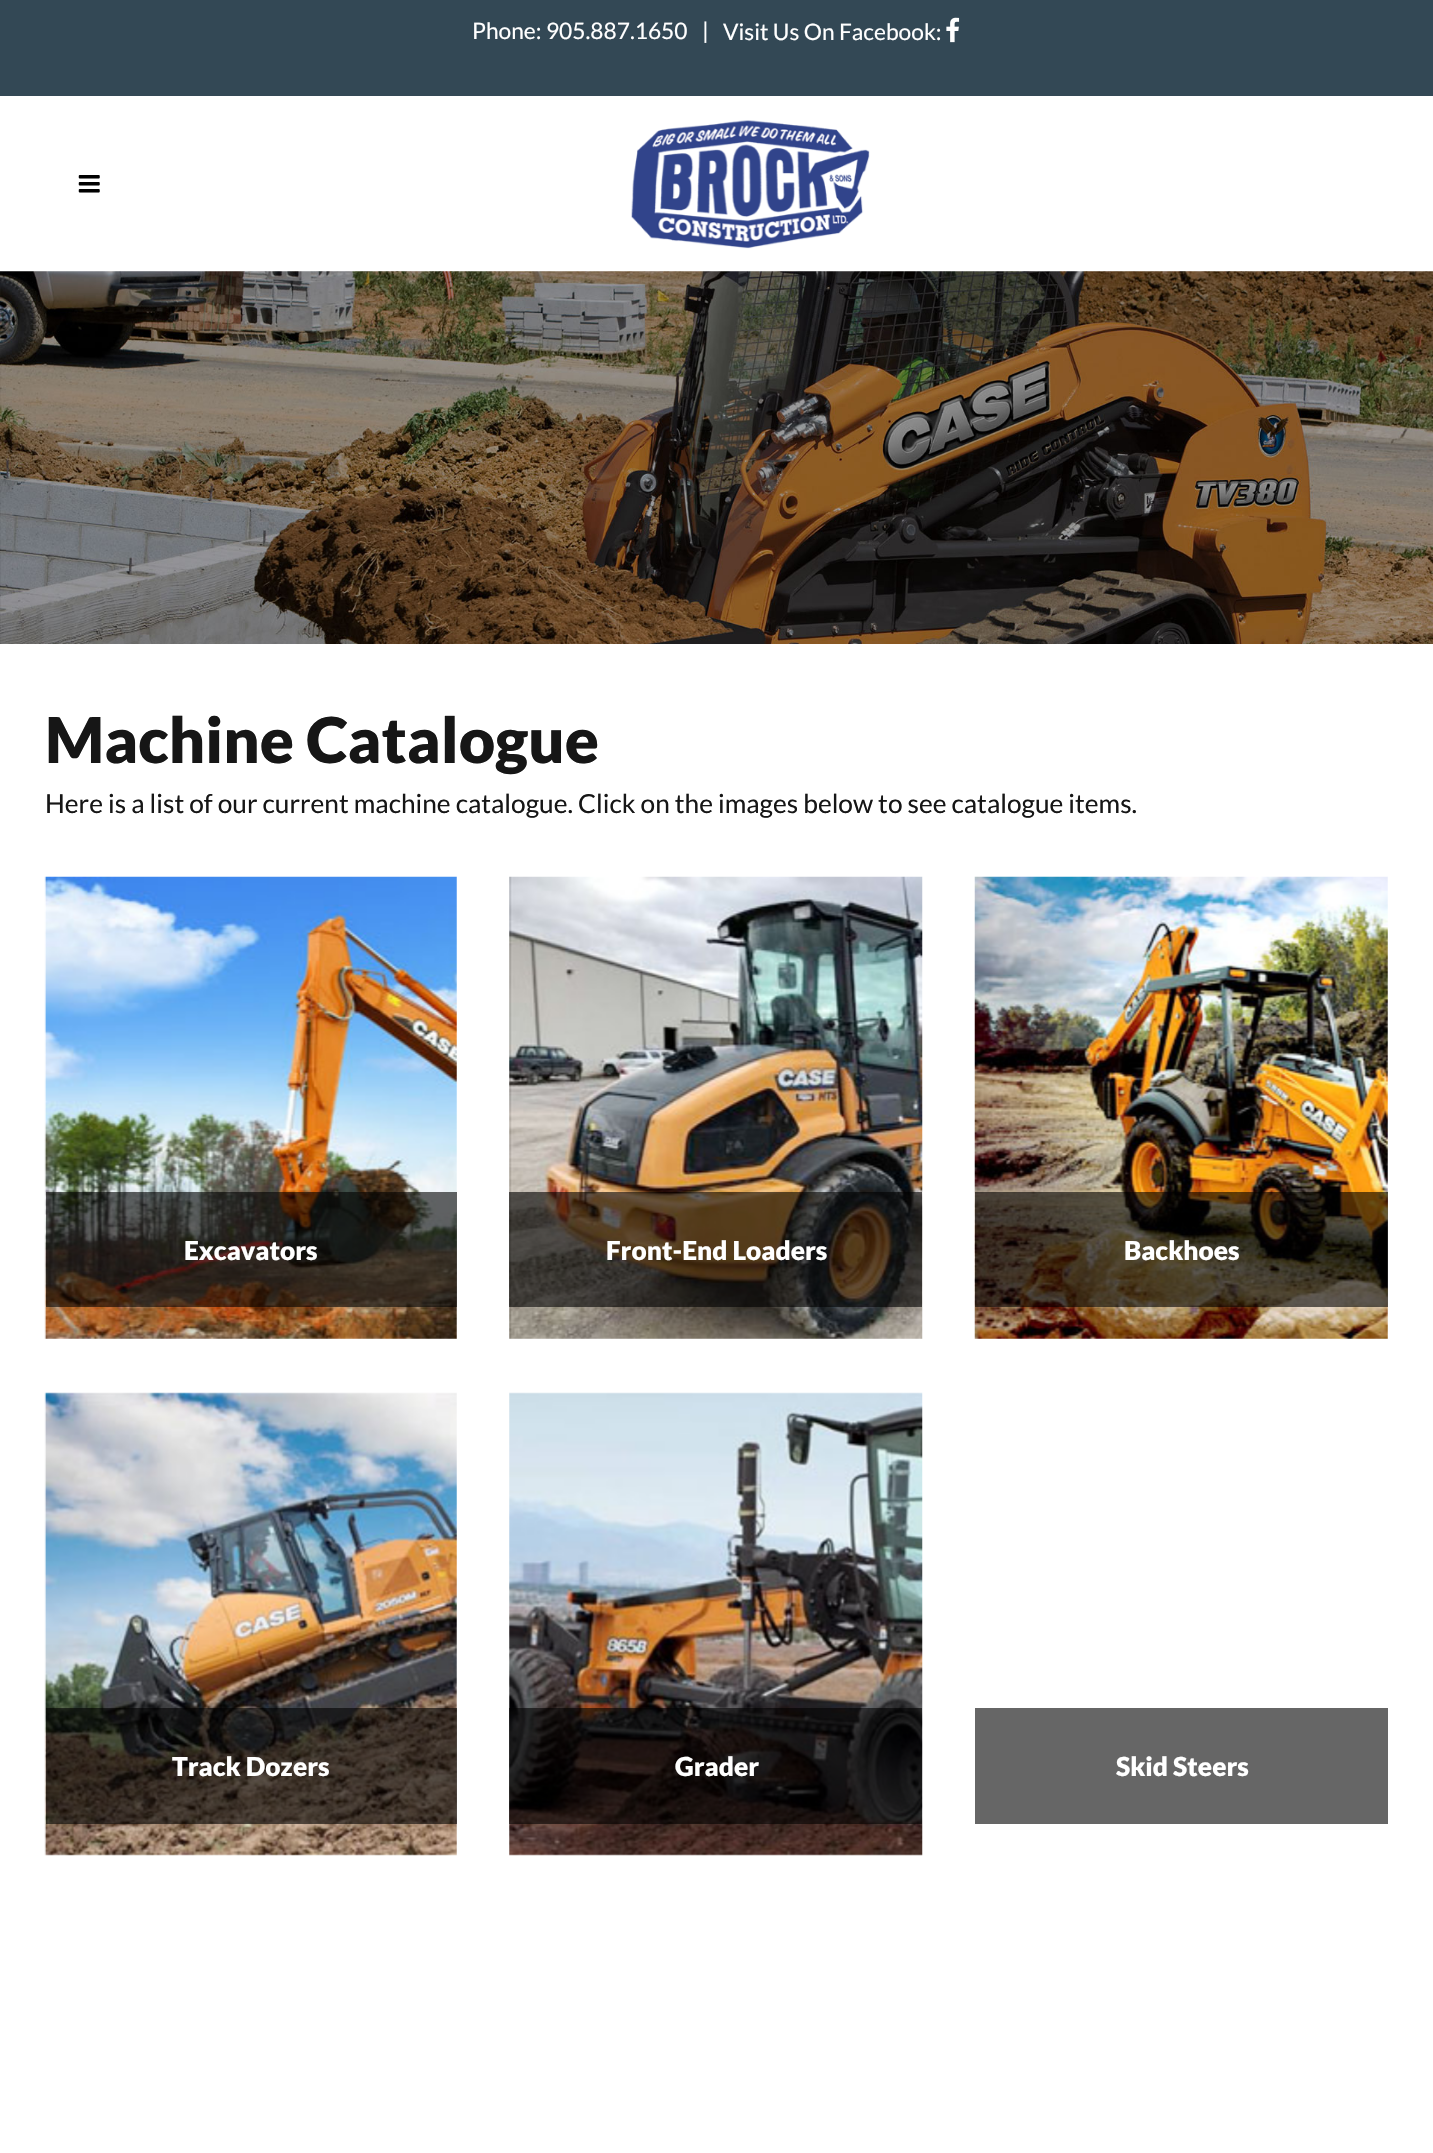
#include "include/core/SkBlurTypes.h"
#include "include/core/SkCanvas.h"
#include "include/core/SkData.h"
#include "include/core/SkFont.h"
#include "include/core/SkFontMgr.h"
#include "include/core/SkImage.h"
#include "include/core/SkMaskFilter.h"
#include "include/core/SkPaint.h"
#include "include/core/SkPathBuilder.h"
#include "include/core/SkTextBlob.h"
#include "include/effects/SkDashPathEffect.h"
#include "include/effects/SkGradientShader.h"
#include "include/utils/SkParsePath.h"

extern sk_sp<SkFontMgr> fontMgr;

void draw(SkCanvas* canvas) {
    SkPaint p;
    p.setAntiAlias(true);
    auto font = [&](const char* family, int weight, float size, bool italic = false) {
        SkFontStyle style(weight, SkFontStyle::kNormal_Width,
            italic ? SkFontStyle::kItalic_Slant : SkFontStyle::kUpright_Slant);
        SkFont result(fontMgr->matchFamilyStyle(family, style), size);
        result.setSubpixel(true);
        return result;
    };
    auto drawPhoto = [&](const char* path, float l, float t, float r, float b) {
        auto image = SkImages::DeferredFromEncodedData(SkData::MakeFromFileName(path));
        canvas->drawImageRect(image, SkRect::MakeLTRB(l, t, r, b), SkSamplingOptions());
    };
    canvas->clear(0xFFFFFFFF);
    p.setColor(0xFF334855);
    canvas->drawRect(SkRect::MakeLTRB(0, 0, 1433, 96), p);
    auto font1 = font("Lato", 400, 22.75f);
    p.setColor(0xFFFFFFFF);
    {
        const struct { const char* s; float x, y; } items[] = {
            {"Phone: 905.887.1650", 472, 39},
            {"|", 702, 39},
            {"Visit Us On Facebook:", 723, 40},
        };
        for (auto [s, x, y] : items) {
            canvas->drawString(s, x, y, font1, p);
        }
    }
    drawPhoto("media/1.png", 946, 17, 960, 43);
    drawPhoto("media/2.png", 78, 175, 100, 193);
    drawPhoto("media/3.png", 631, 120, 870, 249);
    drawPhoto("media/4.png", 0, 271, 1433, 644);
    auto font2 = font("Lato", 900, 63);
    p.setColor(0xFF161616);
    canvas->drawString("Machine Catalogue", 45, 763, font2, p);
    auto font3 = font("Lato", 400, 26.25f);
    canvas->drawString("Here is a list of our current machine catalogue. Click on the images below to see catalogue items.", 45, 813, font3, p);
    drawPhoto("media/5.png", 44, 876, 457, 1339);
    p.setColor(0x99000000);
    canvas->drawRect(SkRect::MakeLTRB(46, 1192, 457, 1307), p);
    auto font4 = font("Lato", 900, 26.25f);
    p.setColor(0xFFFFFFFF);
    canvas->drawString("Excavators", 184, 1260, font4, p);
    drawPhoto("media/6.png", 509, 876, 923, 1339);
    p.setColor(0x99000000);
    canvas->drawRect(SkRect::MakeLTRB(509, 1192, 922, 1307), p);
    p.setColor(0xFFFFFFFF);
    canvas->drawString("Front-End Loaders", 606, 1260, font4, p);
    drawPhoto("media/7.png", 974, 876, 1388, 1339);
    p.setColor(0x99000000);
    canvas->drawRect(SkRect::MakeLTRB(975, 1192, 1388, 1307), p);
    p.setColor(0xFFFFFFFF);
    canvas->drawString("Backhoes", 1124, 1260, font4, p);
    drawPhoto("media/8.png", 44, 1392, 457, 1856);
    p.setColor(0x99000000);
    canvas->drawRect(SkRect::MakeLTRB(46, 1708, 457, 1824), p);
    p.setColor(0xFFFFFFFF);
    canvas->drawString("Track Dozers", 172, 1776, font4, p);
    drawPhoto("media/9.png", 509, 1392, 923, 1856);
    p.setColor(0x99000000);
    canvas->drawRect(SkRect::MakeLTRB(509, 1708, 922, 1824), p);
    p.setColor(0xFFFFFFFF);
    canvas->drawString("Grader", 675, 1776, font4, p);
    p.setColor(0xFF666666);
    canvas->drawRect(SkRect::MakeLTRB(975, 1708, 1388, 1824), p);
    p.setColor(0xFFFFFFFF);
    canvas->drawString("Skid Steers", 1116, 1776, font4, p);
}
